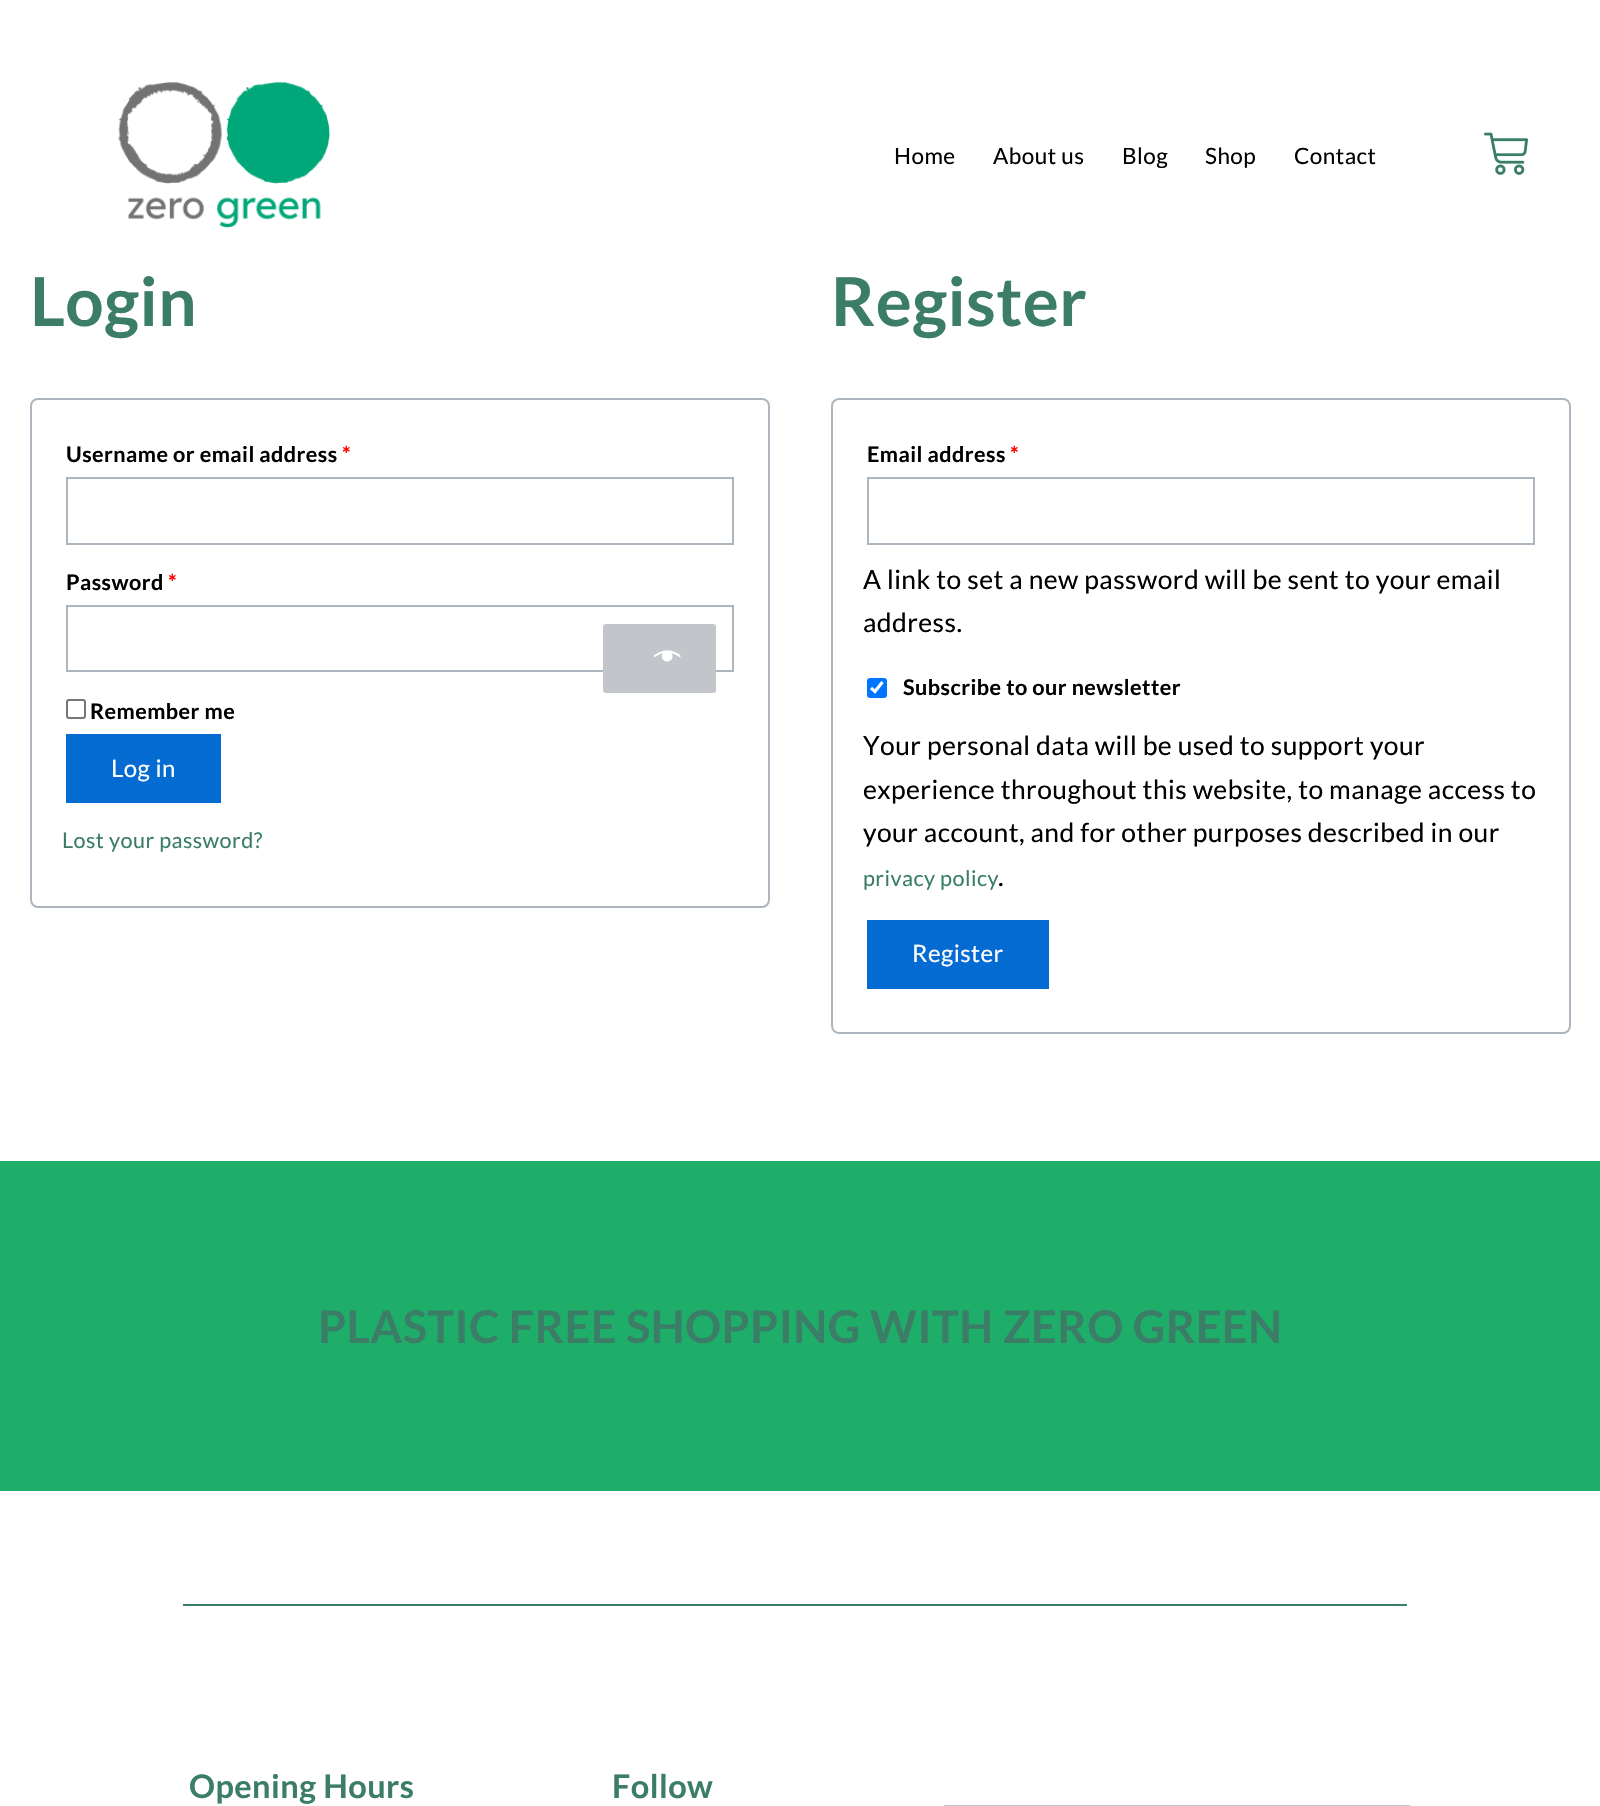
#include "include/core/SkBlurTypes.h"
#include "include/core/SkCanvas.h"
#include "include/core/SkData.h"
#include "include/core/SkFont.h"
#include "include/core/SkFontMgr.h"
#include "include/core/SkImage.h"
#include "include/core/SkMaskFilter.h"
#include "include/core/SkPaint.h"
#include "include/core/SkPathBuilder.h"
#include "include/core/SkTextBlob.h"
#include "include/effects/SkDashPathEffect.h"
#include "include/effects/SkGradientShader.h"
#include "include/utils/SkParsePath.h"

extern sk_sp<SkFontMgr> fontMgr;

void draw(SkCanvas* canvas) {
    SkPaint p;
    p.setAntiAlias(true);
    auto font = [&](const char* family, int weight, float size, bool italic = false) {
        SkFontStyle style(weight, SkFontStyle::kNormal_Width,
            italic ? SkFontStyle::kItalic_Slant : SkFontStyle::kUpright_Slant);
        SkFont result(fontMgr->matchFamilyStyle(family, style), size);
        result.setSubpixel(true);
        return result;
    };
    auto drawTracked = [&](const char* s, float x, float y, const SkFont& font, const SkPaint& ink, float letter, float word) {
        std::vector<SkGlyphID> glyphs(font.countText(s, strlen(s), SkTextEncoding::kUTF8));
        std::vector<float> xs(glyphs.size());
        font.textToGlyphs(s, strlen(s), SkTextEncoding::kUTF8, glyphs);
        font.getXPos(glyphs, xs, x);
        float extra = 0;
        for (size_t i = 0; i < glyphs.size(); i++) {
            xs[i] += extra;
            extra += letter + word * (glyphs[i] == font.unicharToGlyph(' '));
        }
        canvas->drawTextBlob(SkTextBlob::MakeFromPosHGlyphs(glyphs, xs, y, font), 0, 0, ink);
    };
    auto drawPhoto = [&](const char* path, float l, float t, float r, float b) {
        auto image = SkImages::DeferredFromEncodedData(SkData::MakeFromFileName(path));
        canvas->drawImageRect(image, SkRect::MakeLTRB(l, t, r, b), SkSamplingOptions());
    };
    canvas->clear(0xFFFFFFFF);
    drawPhoto("media/1.png", 118, 81, 331, 228);
    auto font1 = font("Lato", 400, 22.5f);
    p.setColor(0xFF000000);
    {
        const struct { const char* s; float x, y; } items[] = {
            {"Home", 894, 164},
            {"About us", 993, 164},
            {"Blog", 1122, 164},
            {"Shop", 1205, 164},
            {"Contact", 1294, 164},
        };
        for (auto [s, x, y] : items) {
            drawTracked(s, x, y, font1, p, 0.45f, 0);
        }
    }
    drawPhoto("media/2.png", 1484, 132, 1528, 175);
    auto font2 = font("Lato", 700, 67.5f);
    p.setColor(0xFF3B7D66);
    drawTracked("Login", 30, 326, font2, p, 0.45f, 0);
    p.setStyle(SkPaint::kStroke_Style);
    p.setStrokeWidth(2);
    p.setColor(0xFFADB6BE);
    canvas->drawRoundRect(SkRect::MakeLTRB(31, 399, 769, 907), 7, 7, p);
    auto font3 = font("Lato", 700, 21.6f);
    p.setStyle(SkPaint::kFill_Style);
    p.setColor(0xFF000000);
    drawTracked("Username or email address", 66, 462, font3, p, 0.45f, 0);
    p.setColor(0xFFFF0000);
    drawTracked("*", 342, 462, font3, p, 0.45f, 0);
    p.setStyle(SkPaint::kStroke_Style);
    p.setColor(0xFFADB6BE);
    canvas->drawRect(SkRect::MakeLTRB(67, 478, 733, 544), p);
    p.setStyle(SkPaint::kFill_Style);
    p.setColor(0xFF000000);
    drawTracked("Password", 66, 590, font3, p, 0.45f, 0);
    p.setColor(0xFFFF0000);
    drawTracked("*", 168, 590, font3, p, 0.45f, 0);
    p.setStyle(SkPaint::kStroke_Style);
    p.setColor(0xFFADB6BE);
    canvas->drawRect(SkRect::MakeLTRB(67, 606, 733, 671), p);
    p.setStyle(SkPaint::kFill_Style);
    p.setColor(0xFFC2C6CA);
    canvas->drawRoundRect(SkRect::MakeLTRB(603, 624, 716, 693), 3, 3, p);
    drawPhoto("media/3.png", 654, 650, 681, 662);
    p.setStyle(SkPaint::kStroke_Style);
    p.setColor(0xFF767676);
    canvas->drawRoundRect(SkRect::MakeLTRB(67, 700, 85, 718), 2, 2, p);
    p.setStyle(SkPaint::kFill_Style);
    p.setColor(0xFF000000);
    drawTracked("Remember me", 90, 719, font3, p, 0.45f, 0);
    p.setColor(0xFF046BD2);
    canvas->drawRect(SkRect::MakeLTRB(66, 734, 221, 803), p);
    auto font4 = font("Lato", 400, 24);
    p.setColor(0xFFFFFFFF);
    drawTracked("Log in", 111, 777, font4, p, 0.45f, 0);
    auto font5 = font("Lato", 400, 21.6f);
    p.setColor(0xFF3B7D66);
    drawTracked("Lost your password?", 62, 848, font5, p, 0.45f, 0);
    drawTracked("Register", 831, 326, font2, p, 0.45f, 0);
    p.setStyle(SkPaint::kStroke_Style);
    p.setColor(0xFFADB6BE);
    canvas->drawRoundRect(SkRect::MakeLTRB(832, 399, 1570, 1033), 7, 7, p);
    p.setStyle(SkPaint::kFill_Style);
    p.setColor(0xFF000000);
    drawTracked("Email address", 867, 462, font3, p, 0.45f, 0);
    p.setColor(0xFFFF0000);
    drawTracked("*", 1010, 462, font3, p, 0.45f, 0);
    p.setStyle(SkPaint::kStroke_Style);
    p.setColor(0xFFADB6BE);
    canvas->drawRect(SkRect::MakeLTRB(868, 478, 1534, 544), p);
    auto font6 = font("Lato", 400, 26.4f);
    p.setStyle(SkPaint::kFill_Style);
    p.setColor(0xFF000000);
    drawTracked("A link to set a new password will be sent to your email", 863, 589, font6, p, 0.45f, 0);
    drawTracked("address.", 863, 632, font6, p, 0.45f, 0);
    p.setColor(0xFF0075FF);
    canvas->drawRoundRect(SkRect::MakeLTRB(867, 678, 887, 698), 3, 3, p);
    p.setStyle(SkPaint::kStroke_Style);
    p.setStrokeWidth(3.1f);
    p.setColor(0xFFFFFFFF);
    canvas->drawPath(SkPathBuilder().moveTo(871, 688).lineTo(875, 691.5f).lineTo(882.5f, 682).detach(), p);
    p.setStyle(SkPaint::kFill_Style);
    p.setColor(0xFF000000);
    drawTracked("Subscribe to our newsletter", 903, 695, font3, p, 0.45f, 0);
    {
        const struct { const char* s; float x, y; } items[] = {
            {"Your personal data will be used to support your", 863, 755},
            {"experience throughout this website, to manage access to", 863, 799},
            {"your account, and for other purposes described in our", 863, 842},
        };
        for (auto [s, x, y] : items) {
            drawTracked(s, x, y, font6, p, 0.45f, 0);
        }
    }
    p.setColor(0xFF3B7D66);
    drawTracked("privacy policy", 863, 886, font5, p, 0.45f, 0);
    p.setColor(0xFF000000);
    drawTracked(".", 998, 886, font6, p, 0.45f, 0);
    p.setColor(0xFF046BD2);
    canvas->drawRect(SkRect::MakeLTRB(867, 920, 1049, 989), p);
    p.setColor(0xFFFFFFFF);
    drawTracked("Register", 912, 962, font4, p, 0.45f, 0);
    p.setColor(0xFF1EAE6A);
    canvas->drawRect(SkRect::MakeLTRB(0, 1161, 1600, 1491), p);
    auto font7 = font("Lato", 700, 45);
    p.setColor(0xFF3B7D66);
    drawTracked("PLASTIC FREE SHOPPING WITH ZERO GREEN", 318, 1343, font7, p, 0.45f, 0);
    canvas->drawRect(SkRect::MakeLTRB(183, 1604, 1407, 1606), p);
    auto font8 = font("Lato", 700, 32.5f);
    drawTracked("Opening Hours", 189, 1798, font8, p, 0.45f, 0);
    drawTracked("Follow", 612, 1798, font8, p, 0.45f, 0);
    p.setColor(0xFFC2C6CA);
    canvas->drawRect(SkRect::MakeLTRB(944, 1805, 1410, 1806), p);
}
